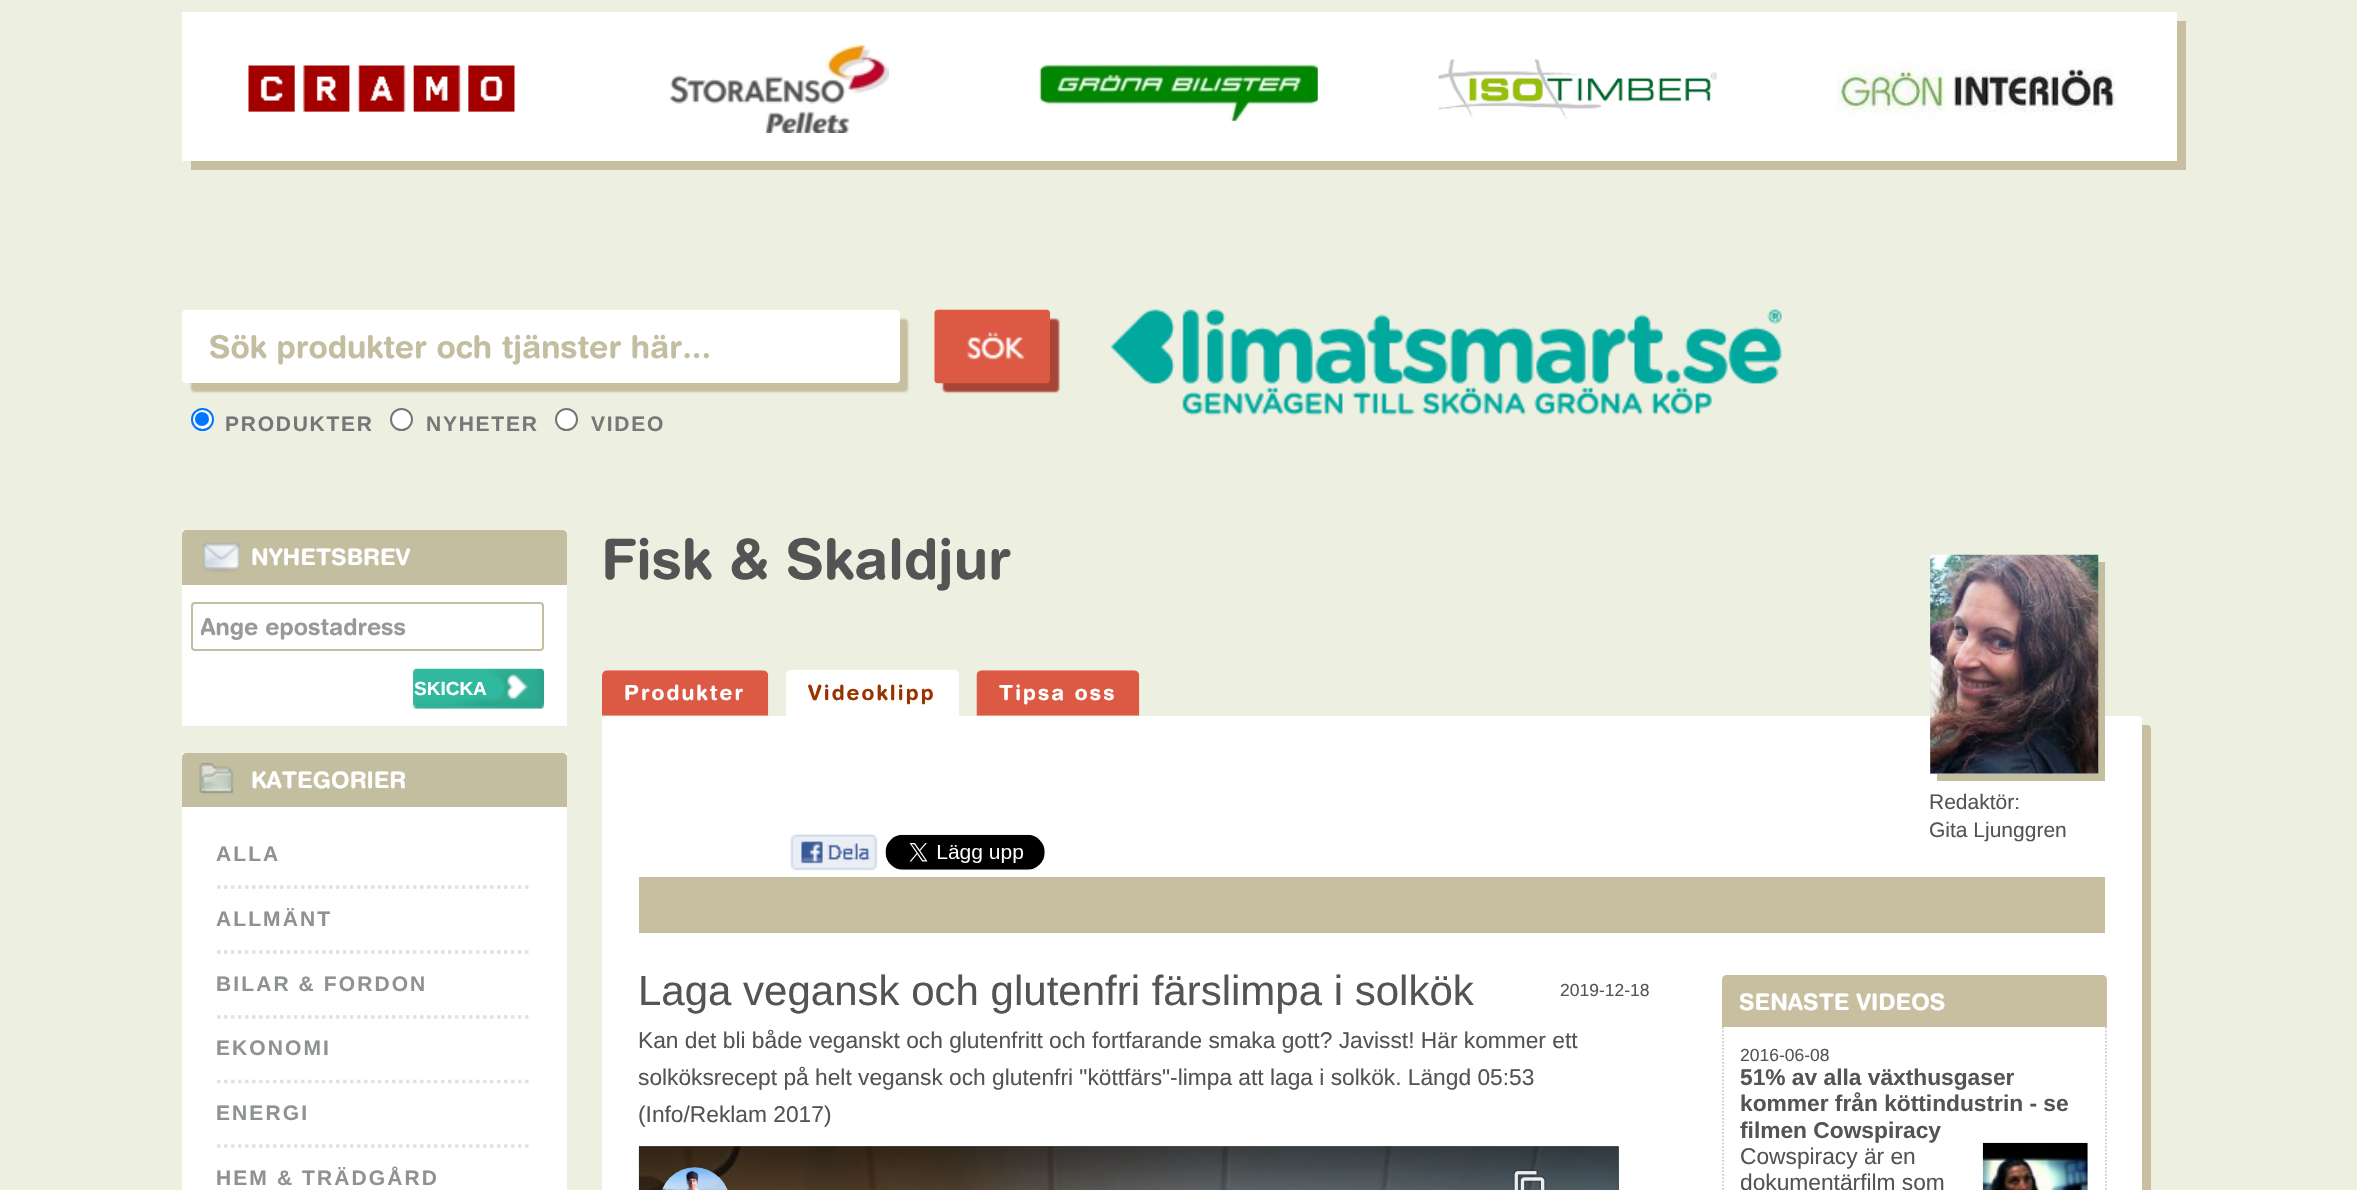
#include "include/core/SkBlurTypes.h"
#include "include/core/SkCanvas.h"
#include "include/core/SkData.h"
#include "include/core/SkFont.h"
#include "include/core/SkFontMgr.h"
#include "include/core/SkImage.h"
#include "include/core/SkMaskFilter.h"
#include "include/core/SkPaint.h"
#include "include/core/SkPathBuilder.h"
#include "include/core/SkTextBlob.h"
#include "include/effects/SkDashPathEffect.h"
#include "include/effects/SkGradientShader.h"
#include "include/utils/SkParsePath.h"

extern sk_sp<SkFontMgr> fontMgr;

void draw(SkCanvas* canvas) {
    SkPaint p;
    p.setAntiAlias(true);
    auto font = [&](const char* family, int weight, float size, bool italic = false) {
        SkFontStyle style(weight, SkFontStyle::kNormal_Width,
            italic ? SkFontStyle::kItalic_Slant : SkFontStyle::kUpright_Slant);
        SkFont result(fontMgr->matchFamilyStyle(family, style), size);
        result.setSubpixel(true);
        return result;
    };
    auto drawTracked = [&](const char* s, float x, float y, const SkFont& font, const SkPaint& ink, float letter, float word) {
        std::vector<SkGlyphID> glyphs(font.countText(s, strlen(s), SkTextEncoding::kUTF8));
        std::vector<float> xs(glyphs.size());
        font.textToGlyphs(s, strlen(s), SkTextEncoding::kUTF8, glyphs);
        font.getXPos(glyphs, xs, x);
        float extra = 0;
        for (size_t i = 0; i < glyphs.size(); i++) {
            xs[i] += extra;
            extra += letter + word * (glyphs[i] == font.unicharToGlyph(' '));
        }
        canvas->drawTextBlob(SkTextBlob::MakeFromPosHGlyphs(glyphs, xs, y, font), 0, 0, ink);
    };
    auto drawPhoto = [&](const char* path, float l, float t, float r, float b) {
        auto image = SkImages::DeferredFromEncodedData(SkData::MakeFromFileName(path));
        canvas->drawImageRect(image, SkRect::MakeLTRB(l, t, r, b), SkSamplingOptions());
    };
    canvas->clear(0xFFEDEFE0);
    p.setColor(0xFFC8BFA1);
    canvas->drawPath(SkPathBuilder().moveTo(191, 161).lineTo(191, 170).lineTo(2186, 170).lineTo(2186, 21).lineTo(2177, 21).lineTo(2177, 161).close().detach(), p);
    p.setColor(0xFFFFFFFF);
    canvas->drawRect(SkRect::MakeLTRB(182, 12, 2177, 161), p);
    drawPhoto("media/1.png", 248, 65, 515, 112);
    drawPhoto("media/2.png", 670, 45, 889, 133);
    drawPhoto("media/3.png", 1039, 62, 1318, 121);
    drawPhoto("media/4.png", 1438, 59, 1717, 119);
    drawPhoto("media/5.png", 1837, 60, 2116, 119);
    p.setColor(0xFFC8BFA1);
    p.setMaskFilter(SkMaskFilter::MakeBlur(kNormal_SkBlurStyle, 1));
    canvas->drawRoundRect(SkRect::MakeLTRB(191, 319, 908, 392), 4, 4, p);
    p.setMaskFilter(nullptr);
    p.setColor(0xFFFFFFFF);
    canvas->drawRoundRect(SkRect::MakeLTRB(182, 310, 900, 383), 4, 4, p);
    auto font1 = font("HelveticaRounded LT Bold", 700, 31.5f);
    p.setColor(0xFFC4BEA1);
    canvas->drawString("Sök produkter och tjänster här...", 209, 358, font1, p);
    p.setColor(0xFFA84539);
    p.setMaskFilter(SkMaskFilter::MakeBlur(kNormal_SkBlurStyle, 1));
    canvas->drawRoundRect(SkRect::MakeLTRB(943, 319, 1059, 392), 4, 4, p);
    p.setMaskFilter(nullptr);
    drawPhoto("media/6.png", 934, 309, 1051, 384);
    p.setColor(0xFFFFFFFF);
    canvas->drawCircle(202.5f, 419.5f, 10.5f, p);
    p.setStyle(SkPaint::kStroke_Style);
    p.setStrokeWidth(2);
    p.setColor(0xFF0075FF);
    canvas->drawCircle(202.5f, 419.5f, 10.5f, p);
    p.setStyle(SkPaint::kFill_Style);
    canvas->drawCircle(202, 419, 7, p);
    auto font2 = font("Liberation Sans", 700, 21);
    p.setColor(0xFF777777);
    drawTracked("PRODUKTER", 225, 431, font2, p, 1.75f, 0);
    p.setColor(0xFFFFFFFF);
    canvas->drawCircle(401.5f, 419.5f, 10.5f, p);
    p.setStyle(SkPaint::kStroke_Style);
    p.setColor(0xFF767676);
    canvas->drawCircle(401.5f, 419.5f, 10.5f, p);
    p.setStyle(SkPaint::kFill_Style);
    p.setColor(0xFF777777);
    drawTracked("NYHETER", 426, 431, font2, p, 1.75f, 0);
    p.setColor(0xFFFFFFFF);
    canvas->drawCircle(566.5f, 419.5f, 10.5f, p);
    p.setStyle(SkPaint::kStroke_Style);
    p.setColor(0xFF767676);
    canvas->drawCircle(566.5f, 419.5f, 10.5f, p);
    p.setStyle(SkPaint::kFill_Style);
    p.setColor(0xFF777777);
    drawTracked("VIDEO", 591, 431, font2, p, 1.75f, 0);
    drawPhoto("media/7.png", 1110, 309, 1782, 416);
    p.setColor(0xFFFFFFFF);
    canvas->drawRect(SkRect::MakeLTRB(182, 530, 567, 726), p);
    p.setColor(0xFFC4BEA1);
    canvas->drawPath(SkPathBuilder().moveTo(186, 530).lineTo(563, 530).cubicTo(565, 530, 567, 532, 567, 534).lineTo(567, 585).lineTo(182, 585).lineTo(182, 534).cubicTo(182, 532, 184, 530, 186, 530).close().detach(), p);
    drawPhoto("media/8.png", 202, 542, 240, 573);
    auto font3 = font("HelveticaRounded LT Bold", 700, 22.75f);
    p.setColor(0xFFFFFFFF);
    canvas->drawString("NYHETSBREV", 251, 565, font3, p);
    p.setStyle(SkPaint::kStroke_Style);
    p.setColor(0xFFC4BEA1);
    canvas->drawRoundRect(SkRect::MakeLTRB(192, 603, 543, 650), 3, 3, p);
    canvas->save();
    canvas->clipRect(SkRect::MakeLTRB(201, 613, 534, 641));
    auto font4 = font("HelveticaRounded LT Bold", 700, 23.25f);
    p.setStyle(SkPaint::kFill_Style);
    p.setColor(0xFF999999);
    canvas->drawString("Ange epostadress", 200, 635, font4, p);
    canvas->restore();
    p.setColor(0xFFEFEFEF);
    canvas->drawRoundRect(SkRect::MakeLTRB(413, 669, 544, 709), 4, 4, p);
    drawPhoto("media/9.png", 413, 668, 545, 709);
    auto font5 = font("Liberation Sans", 700, 19);
    p.setColor(0xFFFFFFFF);
    canvas->drawString("SKICKA", 414, 695, font5, p);
    canvas->drawRect(SkRect::MakeLTRB(182, 753, 567, 1190), p);
    p.setColor(0xFFC4BEA1);
    canvas->drawPath(SkPathBuilder().moveTo(186, 753).lineTo(563, 753).cubicTo(565, 753, 567, 755, 567, 757).lineTo(567, 807).lineTo(182, 807).lineTo(182, 757).cubicTo(182, 755, 184, 753, 186, 753).close().detach(), p);
    drawPhoto("media/10.png", 199, 763, 234, 794);
    p.setColor(0xFFFFFFFF);
    canvas->drawString("KATEGORIER", 251, 788, font3, p);
    p.setColor(0xFF8F9292);
    drawTracked("ALLA", 216, 861, font2, p, 2.1f, 0);
    p.setStyle(SkPaint::kStroke_Style);
    p.setStrokeWidth(3.5f);
    p.setColor(0xFFDEE2E3);
    p.setPathEffect(SkDashPathEffect::Make({{3.5f, 3.5f}}, 0));
    canvas->drawPath(SkPathBuilder().moveTo(217, 887).lineTo(532, 887).detach(), p);
    p.setPathEffect(nullptr);
    p.setStyle(SkPaint::kFill_Style);
    p.setColor(0xFF8F9292);
    drawTracked("ALLMÄNT", 216, 926, font2, p, 2.1f, 0);
    p.setStyle(SkPaint::kStroke_Style);
    p.setColor(0xFFDEE2E3);
    p.setPathEffect(SkDashPathEffect::Make({{3.5f, 3.5f}}, 0));
    canvas->drawPath(SkPathBuilder().moveTo(217, 952).lineTo(532, 952).detach(), p);
    p.setPathEffect(nullptr);
    p.setStyle(SkPaint::kFill_Style);
    p.setColor(0xFF8F9292);
    drawTracked("BILAR & FORDON", 216, 991, font2, p, 2.1f, 0);
    p.setStyle(SkPaint::kStroke_Style);
    p.setColor(0xFFDEE2E3);
    p.setPathEffect(SkDashPathEffect::Make({{3.5f, 3.5f}}, 0));
    canvas->drawPath(SkPathBuilder().moveTo(217, 1017).lineTo(532, 1017).detach(), p);
    p.setPathEffect(nullptr);
    p.setStyle(SkPaint::kFill_Style);
    p.setColor(0xFF8F9292);
    drawTracked("EKONOMI", 216, 1055, font2, p, 2.1f, 0);
    p.setStyle(SkPaint::kStroke_Style);
    p.setColor(0xFFDEE2E3);
    p.setPathEffect(SkDashPathEffect::Make({{3.5f, 3.5f}}, 0));
    canvas->drawPath(SkPathBuilder().moveTo(217, 1081.5f).lineTo(532, 1081.5f).detach(), p);
    p.setPathEffect(nullptr);
    p.setStyle(SkPaint::kFill_Style);
    p.setColor(0xFF8F9292);
    drawTracked("ENERGI", 216, 1120, font2, p, 2.1f, 0);
    p.setStyle(SkPaint::kStroke_Style);
    p.setColor(0xFFDEE2E3);
    p.setPathEffect(SkDashPathEffect::Make({{3.5f, 3.5f}}, 0));
    canvas->drawPath(SkPathBuilder().moveTo(217, 1146).lineTo(532, 1146).detach(), p);
    p.setPathEffect(nullptr);
    p.setStyle(SkPaint::kFill_Style);
    p.setColor(0xFF8F9292);
    drawTracked("HEM & TRÄDGÅRD", 216, 1185, font2, p, 2.1f, 0);
    auto font6 = font("HelveticaRounded LT Bold", 700, 56);
    p.setColor(0xFF545454);
    canvas->drawString("Fisk & Skaldjur", 601, 579, font6, p);
    drawPhoto("media/11.png", 602, 670, 769, 716);
    auto font7 = font("HelveticaRounded LT Bold", 700, 21);
    p.setColor(0xFFFFFFFF);
    drawTracked("Produkter", 624, 700, font7, p, 2.1f, 0);
    canvas->drawPath(SkPathBuilder().moveTo(791, 670).lineTo(954, 670).cubicTo(957, 670, 959, 672, 959, 675).lineTo(959, 716).lineTo(786, 716).lineTo(786, 675).cubicTo(786, 672, 788, 670, 791, 670).close().detach(), p);
    p.setColor(0xFF993300);
    drawTracked("Videoklipp", 808, 700, font7, p, 2.1f, 0);
    drawPhoto("media/12.png", 976, 670, 1140, 716);
    p.setColor(0xFFFFFFFF);
    drawTracked("Tipsa oss", 999, 700, font7, p, 2.1f, 0);
    p.setColor(0xFFC8BFA1);
    canvas->drawPath(SkPathBuilder().moveTo(611, 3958).lineTo(611, 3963).cubicTo(611, 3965, 613, 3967, 615, 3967).lineTo(2147, 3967).cubicTo(2149, 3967, 2151, 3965, 2151, 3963).lineTo(2151, 729).cubicTo(2151, 727, 2149, 725, 2147, 725).lineTo(2142, 725).lineTo(2142, 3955).cubicTo(2142, 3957, 2140, 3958, 2138, 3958).close().detach(), p);
    p.setColor(0xFFFFFFFF);
    canvas->drawRoundRect(SkRect::MakeLTRB(602, 716, 2142, 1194), 4, 4, p);
    p.setColor(0xFFC4BEA1);
    canvas->drawPath(SkPathBuilder().moveTo(1937, 774).lineTo(1937, 781).lineTo(2105, 781).lineTo(2105, 562).lineTo(2098, 562).lineTo(2098, 774).close().detach(), p);
    p.setColor(0xFFCCCCCC);
    canvas->drawRect(SkRect::MakeLTRB(1930, 555, 2098, 774), p);
    drawPhoto("media/13.png", 1930, 554, 2099, 774);
    auto font8 = font("Liberation Sans", 400, 21);
    p.setColor(0xFF545454);
    canvas->drawString("Redaktör:", 1929, 809, font8, p);
    canvas->drawString("Gita Ljunggren", 1929, 837, font8, p);
    drawPhoto("media/14.png", 790, 834, 878, 871);
    drawPhoto("media/15.png", 885, 834, 1045, 870);
    p.setColor(0xFFC8BFA1);
    canvas->drawRect(SkRect::MakeLTRB(639, 877, 2105, 933), p);
    auto font9 = font("Liberation Sans", 400, 42);
    p.setColor(0xFF545454);
    canvas->drawString("Laga vegansk och glutenfri färslimpa i solkök", 638, 1005, font9, p);
    auto font10 = font("Liberation Sans", 400, 17.5f);
    canvas->drawString("2019-12-18", 1560, 996, font10, p);
    auto font11 = font("Liberation Sans", 400, 22.75f);
    {
        const struct { const char* s; float x, y; } items[] = {
            {"Kan det bli både veganskt och glutenfritt och fortfarande smaka gott? Javisst! Här kommer ett", 638, 1048},
            {"solköksrecept på helt vegansk och glutenfri \"köttfärs\"-limpa att laga i solkök. Längd 05:53", 638, 1085},
            {"(Info/Reklam 2017)", 638, 1122},
        };
        for (auto [s, x, y] : items) {
            canvas->drawString(s, x, y, font11, p);
        }
    }
    drawPhoto("media/16.png", 638, 1146, 1619, 1190);
    p.setColor(0xFFC8BFA1);
    canvas->drawPath(SkPathBuilder().moveTo(1727, 975).lineTo(2102, 975).cubicTo(2105, 975, 2107, 977, 2107, 980).lineTo(2107, 1027).lineTo(1722, 1027).lineTo(1722, 980).cubicTo(1722, 977, 1724, 975, 1727, 975).close().detach(), p);
    p.setColor(0xFFFFFFFF);
    canvas->drawString("SENASTE VIDEOS", 1739, 1010, font3, p);
    p.setStyle(SkPaint::kStroke_Style);
    p.setStrokeWidth(1.8f);
    p.setColor(0xFFCCCCCC);
    p.setPathEffect(SkDashPathEffect::Make({{1.75f, 1.75f}}, 0));
    canvas->drawPath(SkPathBuilder().moveTo(2106, 1027).lineTo(2106, 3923.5f).detach(), p);
    p.setPathEffect(nullptr);
    p.setPathEffect(SkDashPathEffect::Make({{1.75f, 1.75f}}, 0));
    canvas->drawPath(SkPathBuilder().moveTo(1723, 1027).lineTo(1723, 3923.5f).detach(), p);
    p.setPathEffect(nullptr);
    p.setStyle(SkPaint::kFill_Style);
    p.setColor(0xFF545454);
    canvas->drawString("2016-06-08", 1740, 1061, font10, p);
    auto font12 = font("Liberation Sans", 700, 22.75f);
    {
        const struct { const char* s; float x, y; } items[] = {
            {"51% av alla växthusgaser", 1740, 1085},
            {"kommer från köttindustrin - se", 1740, 1111},
            {"filmen Cowspiracy", 1740, 1138},
        };
        for (auto [s, x, y] : items) {
            canvas->drawString(s, x, y, font12, p);
        }
    }
    canvas->drawString("Cowspiracy är en", 1740, 1164, font11, p);
    canvas->drawString("dokumentärfilm som", 1740, 1190, font11, p);
    drawPhoto("media/17.png", 1982, 1142, 2088, 1190);
}
